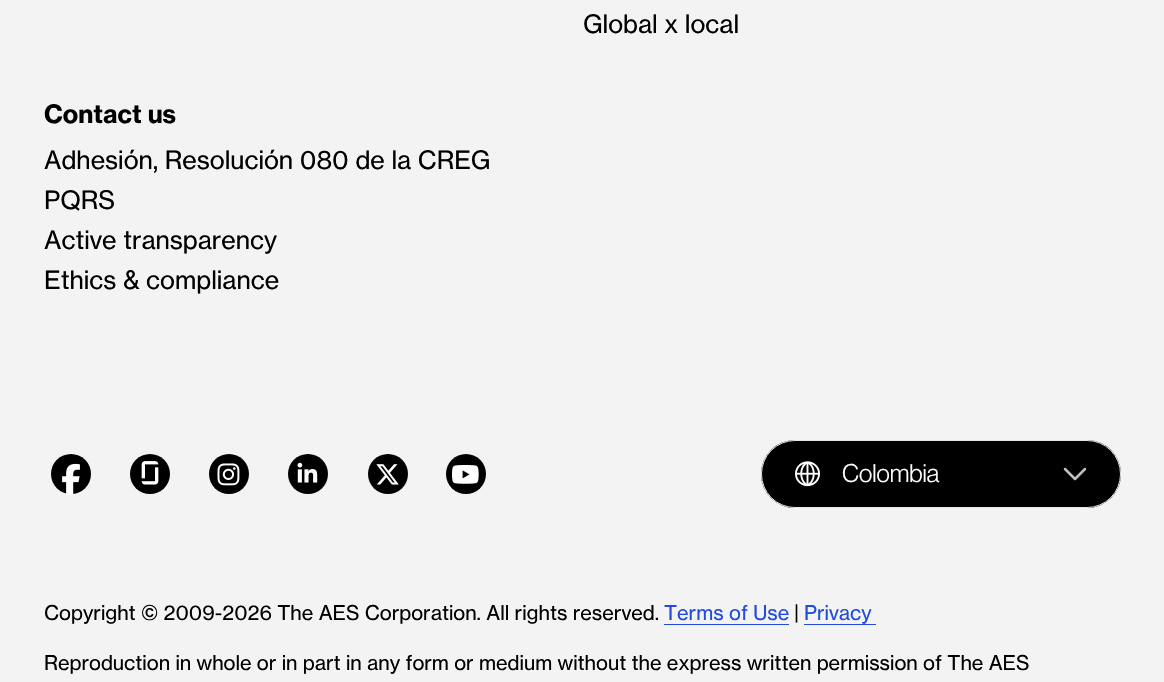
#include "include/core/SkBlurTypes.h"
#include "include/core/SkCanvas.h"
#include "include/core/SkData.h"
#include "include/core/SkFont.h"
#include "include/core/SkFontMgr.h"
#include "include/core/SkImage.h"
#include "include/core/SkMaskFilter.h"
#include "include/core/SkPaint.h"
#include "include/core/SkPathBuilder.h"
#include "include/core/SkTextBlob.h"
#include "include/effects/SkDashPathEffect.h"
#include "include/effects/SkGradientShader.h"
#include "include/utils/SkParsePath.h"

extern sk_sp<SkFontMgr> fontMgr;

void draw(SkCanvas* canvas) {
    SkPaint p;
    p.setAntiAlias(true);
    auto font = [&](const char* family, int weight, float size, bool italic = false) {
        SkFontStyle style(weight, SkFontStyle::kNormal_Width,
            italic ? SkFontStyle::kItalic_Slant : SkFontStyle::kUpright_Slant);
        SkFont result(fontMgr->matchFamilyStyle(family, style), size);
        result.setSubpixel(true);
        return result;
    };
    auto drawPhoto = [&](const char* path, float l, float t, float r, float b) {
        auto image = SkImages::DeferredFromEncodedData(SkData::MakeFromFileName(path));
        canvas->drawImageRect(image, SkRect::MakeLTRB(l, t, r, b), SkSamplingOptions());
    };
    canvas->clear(0xFFF3F3F3);
    auto font1 = font("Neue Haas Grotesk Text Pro", 400, 25);
    p.setColor(0xFF000000);
    canvas->drawString("Global x local", 583, 33, font1, p);
    auto font2 = font("Neue Haas Grotesk Text Pro", 700, 25);
    canvas->drawString("Contact us", 44, 123, font2, p);
    {
        const struct { const char* s; float x, y; } items[] = {
            {"Adhesión, Resolución 080 de la CREG", 44, 169},
            {"PQRS", 44, 209},
            {"Active transparency", 44, 249},
            {"Ethics & compliance", 44, 289},
        };
        for (auto [s, x, y] : items) {
            canvas->drawString(s, x, y, font1, p);
        }
    }
    canvas->drawCircle(71, 474, 20, p);
    drawPhoto("media/1.png", 62, 463, 80, 495);
    canvas->drawCircle(150, 474, 20, p);
    drawPhoto("media/2.png", 141, 461, 159, 485);
    canvas->drawCircle(229, 474, 20, p);
    drawPhoto("media/3.png", 217, 463, 240, 486);
    canvas->drawCircle(308, 474, 20, p);
    drawPhoto("media/4.png", 297, 462, 318, 483);
    canvas->drawCircle(388, 474, 20, p);
    drawPhoto("media/5.png", 376, 464, 399, 485);
    canvas->drawCircle(466, 474, 20, p);
    drawPhoto("media/6.png", 452, 465, 479, 484);
    canvas->drawRoundRect(SkRect::MakeLTRB(761, 440, 1121, 508), 34, 34, p);
    p.setStyle(SkPaint::kStroke_Style);
    p.setStrokeWidth(2.5f);
    p.setStrokeCap(SkPaint::kRound_Cap);
    p.setStrokeJoin(SkPaint::kRound_Join);
    p.setColor(0xFFBFBFBF);
    canvas->drawPath(SkPathBuilder().moveTo(1065, 469).lineTo(1075, 479).lineTo(1085, 469).detach(), p);
    p.setStrokeWidth(1);
    p.setStrokeCap(SkPaint::kButt_Cap);
    p.setStrokeJoin(SkPaint::kMiter_Join);
    p.setColor(0xFFE5E5E5);
    canvas->drawRoundRect(SkRect::MakeLTRB(761.5f, 440.5f, 1120.5f, 507.5f), 33.5f, 33.5f, p);
    drawPhoto("media/7.png", 795, 461, 820, 487);
    auto font3 = font("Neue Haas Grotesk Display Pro", 400, 25);
    p.setStyle(SkPaint::kFill_Style);
    p.setColor(0xFFFFFFFF);
    canvas->drawString("Colombia", 842, 482, font3, p);
    auto font4 = font("Neue Haas Grotesk Text Pro", 400, 20);
    p.setColor(0xFF000000);
    canvas->drawString("Copyright © 2009-2026 The AES Corporation. All rights reserved.", 44, 620, font4, p);
    p.setColor(0xFF214ADE);
    canvas->drawString("Terms of Use", 664, 620, font4, p);
    canvas->drawRect(SkRect::MakeLTRB(664, 624, 789, 625), p);
    p.setColor(0xFF000000);
    canvas->drawString("|", 794, 620, font4, p);
    p.setColor(0xFF214ADE);
    canvas->drawString("Privacy", 804, 620, font4, p);
    canvas->drawRect(SkRect::MakeLTRB(804, 624, 876, 625), p);
    p.setColor(0xFF000000);
    canvas->drawString("Reproduction in whole or in part in any form or medium without the express written permission of The AES", 44, 670, font4, p);
}
